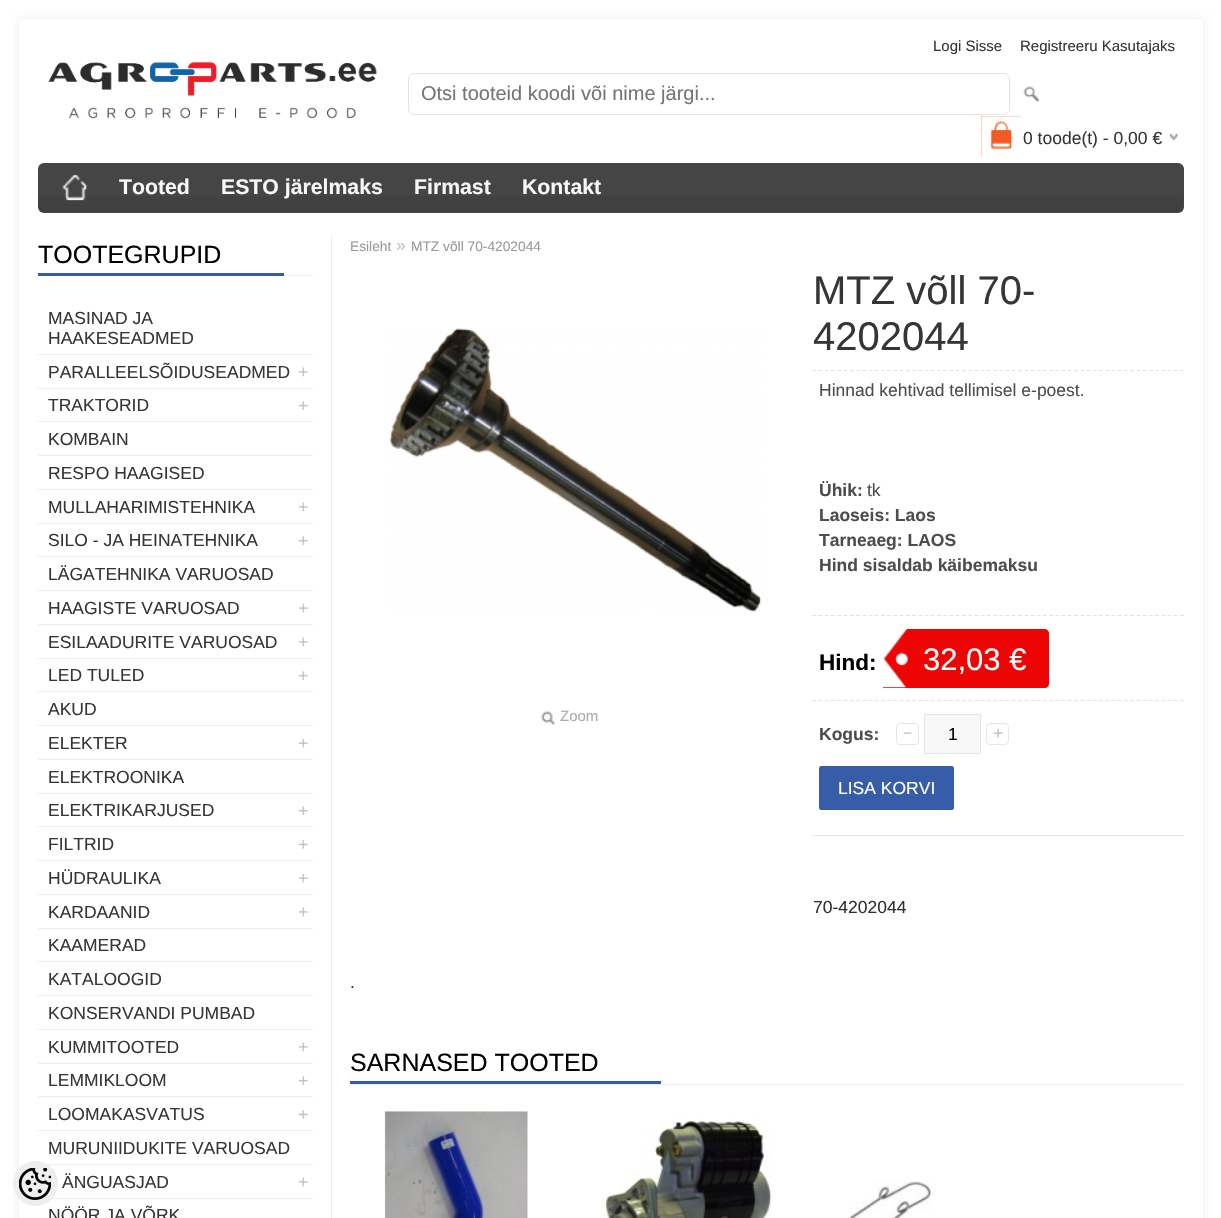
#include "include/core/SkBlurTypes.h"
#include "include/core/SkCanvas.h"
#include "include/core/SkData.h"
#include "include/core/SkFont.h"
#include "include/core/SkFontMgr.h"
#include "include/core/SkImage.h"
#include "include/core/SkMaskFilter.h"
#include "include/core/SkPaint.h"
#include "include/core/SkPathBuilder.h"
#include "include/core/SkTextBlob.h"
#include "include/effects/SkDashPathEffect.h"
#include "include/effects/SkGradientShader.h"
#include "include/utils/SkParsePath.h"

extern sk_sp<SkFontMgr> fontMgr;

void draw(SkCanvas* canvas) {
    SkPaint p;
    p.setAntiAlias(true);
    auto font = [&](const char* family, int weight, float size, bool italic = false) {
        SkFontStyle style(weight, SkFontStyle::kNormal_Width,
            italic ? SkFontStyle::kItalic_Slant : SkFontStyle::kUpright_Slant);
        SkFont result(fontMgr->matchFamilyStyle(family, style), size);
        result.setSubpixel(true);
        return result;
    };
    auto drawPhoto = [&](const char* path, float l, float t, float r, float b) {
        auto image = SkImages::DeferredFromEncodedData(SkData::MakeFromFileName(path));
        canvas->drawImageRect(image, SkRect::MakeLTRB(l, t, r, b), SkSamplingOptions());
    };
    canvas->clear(0xFFFFFFFF);
    p.setColor(0x14000000);
    p.setMaskFilter(SkMaskFilter::MakeBlur(kNormal_SkBlurStyle, 5));
    canvas->drawRoundRect(SkRect::MakeLTRB(19, 19, 1203, 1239), 6, 6, p);
    p.setMaskFilter(nullptr);
    p.setColor(0xFFFFFFFF);
    canvas->drawPath(SkPathBuilder().moveTo(25, 19).lineTo(1197, 19).cubicTo(1200.5f, 19, 1203, 21.5f, 1203, 25).lineTo(1203, 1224).lineTo(19, 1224).lineTo(19, 25).cubicTo(19, 21.5f, 21.5f, 19, 25, 19).close().detach(), p);
    p.setColor(0xFFEEEEEE);
    canvas->drawRect(SkRect::MakeLTRB(38, 1164, 313, 1165), p);
    canvas->drawRect(SkRect::MakeLTRB(51, 1198, 313, 1199), p);
    auto font1 = font("Liberation Sans", 400, 17.5f);
    p.setColor(0xFF363636);
    canvas->drawString("NÖÖR JA VÕRK", 48, 1221, font1, p);
    p.setColor(0xFFEEEEEE);
    canvas->drawCircle(35.5f, 1183.5f, 22.5f, p);
    drawPhoto("media/1.png", 19, 1168, 51, 1200);
    auto font2 = font("Liberation Sans", 400, 15);
    p.setColor(0xFF363636);
    canvas->drawString("Logi Sisse", 933, 51, font2, p);
    canvas->drawString("Registreeru Kasutajaks", 1020, 51, font2, p);
    drawPhoto("media/2.png", 48, 61, 377, 119);
    p.setStyle(SkPaint::kStroke_Style);
    p.setStrokeWidth(1);
    p.setColor(0xFFE4E4E4);
    canvas->drawRoundRect(SkRect::MakeLTRB(408.5f, 73.5f, 1009.5f, 114.5f), 5.5f, 5.5f, p);
    auto font3 = font("Liberation Sans", 400, 20);
    p.setStyle(SkPaint::kFill_Style);
    p.setColor(0xFF757575);
    canvas->drawString("Otsi tooteid koodi või nime järgi...", 421, 100, font3, p);
    drawPhoto("media/3.png", 1023, 86, 1040, 102);
    p.setColor(0xFFF15A23);
    canvas->drawRect(SkRect::MakeLTRB(981, 116, 1021, 156), p);
    drawPhoto("media/4.png", 981, 116, 1021, 156);
    drawPhoto("media/5.png", 1170, 133, 1178, 140);
    p.setColor(0xFF363636);
    canvas->drawString("0 toode(t) - 0,00 €", 1023, 144, font1, p);
    p.setColor(0xFF454545);
    canvas->drawRoundRect(SkRect::MakeLTRB(38, 163, 1184, 213), 6, 6, p);
    drawPhoto("media/6.png", 38, 196, 1183, 212);
    drawPhoto("media/7.png", 62, 174, 87, 201);
    auto font4 = font("Liberation Sans", 700, 21.25f);
    p.setColor(0xFFF7F7F7);
    {
        const struct { const char* s; float x, y; } items[] = {
            {"Tooted", 119, 194},
            {"ESTO järelmaks", 221, 194},
            {"Firmast", 414, 194},
            {"Kontakt", 522, 194},
        };
        for (auto [s, x, y] : items) {
            canvas->drawString(s, x, y, font4, p);
        }
    }
    {
        const struct { float l, t, r, b; SkColor color; } items[] = {
            {331, 235, 332, 1218, 0xFFEEEEEE},
            {284, 275, 313, 276, 0xFFEEEEEE},
            {38, 273, 284, 276, 0xFF375CA7},
        };
        for (auto [l, t, r, b, color] : items) {
            p.setColor(color);
            canvas->drawRect(SkRect::MakeLTRB(l, t, r, b), p);
        }
    }
    auto font5 = font("Liberation Sans", 400, 25);
    p.setColor(0xFF000000);
    canvas->drawString("TOOTEGRUPID", 38, 263, font5, p);
    p.setColor(0xFF363636);
    canvas->drawString("MASINAD JA", 48, 324, font1, p);
    canvas->drawString("HAAKESEADMED", 48, 344, font1, p);
    p.setColor(0xFFEEEEEE);
    canvas->drawRect(SkRect::MakeLTRB(38, 354, 313, 355), p);
    p.setColor(0xFF363636);
    canvas->drawString("PARALLEELSÕIDUSEADMED", 48, 378, font1, p);
    drawPhoto("media/8.png", 298, 367, 308, 377);
    p.setColor(0xFFEEEEEE);
    canvas->drawRect(SkRect::MakeLTRB(38, 388, 313, 389), p);
    p.setColor(0xFF363636);
    canvas->drawString("TRAKTORID", 48, 411, font1, p);
    drawPhoto("media/9.png", 298, 401, 308, 411);
    p.setColor(0xFFEEEEEE);
    canvas->drawRect(SkRect::MakeLTRB(38, 421, 313, 422), p);
    p.setColor(0xFF363636);
    canvas->drawString("KOMBAIN", 48, 445, font1, p);
    p.setColor(0xFFEEEEEE);
    canvas->drawRect(SkRect::MakeLTRB(38, 455, 313, 456), p);
    p.setColor(0xFF363636);
    canvas->drawString("RESPO HAAGISED", 48, 479, font1, p);
    p.setColor(0xFFEEEEEE);
    canvas->drawRect(SkRect::MakeLTRB(38, 489, 313, 490), p);
    p.setColor(0xFF363636);
    canvas->drawString("MULLAHARIMISTEHNIKA", 48, 513, font1, p);
    drawPhoto("media/8.png", 298, 502, 308, 512);
    p.setColor(0xFFEEEEEE);
    canvas->drawRect(SkRect::MakeLTRB(38, 523, 313, 524), p);
    p.setColor(0xFF363636);
    canvas->drawString("SILO - JA HEINATEHNIKA", 48, 546, font1, p);
    drawPhoto("media/9.png", 298, 536, 308, 546);
    p.setColor(0xFFEEEEEE);
    canvas->drawRect(SkRect::MakeLTRB(38, 556, 313, 557), p);
    p.setColor(0xFF363636);
    canvas->drawString("LÄGATEHNIKA VARUOSAD", 48, 580, font1, p);
    p.setColor(0xFFEEEEEE);
    canvas->drawRect(SkRect::MakeLTRB(38, 590, 313, 591), p);
    p.setColor(0xFF363636);
    canvas->drawString("HAAGISTE VARUOSAD", 48, 614, font1, p);
    drawPhoto("media/10.png", 298, 603, 308, 613);
    p.setColor(0xFFEEEEEE);
    canvas->drawRect(SkRect::MakeLTRB(38, 624, 313, 625), p);
    p.setColor(0xFF363636);
    canvas->drawString("ESILAADURITE VARUOSAD", 48, 648, font1, p);
    drawPhoto("media/8.png", 298, 637, 308, 647);
    p.setColor(0xFFEEEEEE);
    canvas->drawRect(SkRect::MakeLTRB(38, 658, 313, 659), p);
    p.setColor(0xFF363636);
    canvas->drawString("LED TULED", 48, 681, font1, p);
    drawPhoto("media/9.png", 298, 671, 308, 681);
    p.setColor(0xFFEEEEEE);
    canvas->drawRect(SkRect::MakeLTRB(38, 691, 313, 692), p);
    p.setColor(0xFF363636);
    canvas->drawString("AKUD", 48, 715, font1, p);
    p.setColor(0xFFEEEEEE);
    canvas->drawRect(SkRect::MakeLTRB(38, 725, 313, 726), p);
    p.setColor(0xFF363636);
    canvas->drawString("ELEKTER", 48, 749, font1, p);
    drawPhoto("media/10.png", 298, 738, 308, 748);
    p.setColor(0xFFEEEEEE);
    canvas->drawRect(SkRect::MakeLTRB(38, 759, 313, 760), p);
    p.setColor(0xFF363636);
    canvas->drawString("ELEKTROONIKA", 48, 783, font1, p);
    p.setColor(0xFFEEEEEE);
    canvas->drawRect(SkRect::MakeLTRB(38, 793, 313, 794), p);
    p.setColor(0xFF363636);
    canvas->drawString("ELEKTRIKARJUSED", 48, 816, font1, p);
    drawPhoto("media/9.png", 298, 806, 308, 816);
    p.setColor(0xFFEEEEEE);
    canvas->drawRect(SkRect::MakeLTRB(38, 826, 313, 827), p);
    p.setColor(0xFF363636);
    canvas->drawString("FILTRID", 48, 850, font1, p);
    drawPhoto("media/11.png", 298, 840, 308, 849);
    p.setColor(0xFFEEEEEE);
    canvas->drawRect(SkRect::MakeLTRB(38, 860, 313, 861), p);
    p.setColor(0xFF363636);
    canvas->drawString("HÜDRAULIKA", 48, 884, font1, p);
    drawPhoto("media/10.png", 298, 873, 308, 883);
    p.setColor(0xFFEEEEEE);
    canvas->drawRect(SkRect::MakeLTRB(38, 894, 313, 895), p);
    p.setColor(0xFF363636);
    canvas->drawString("KARDAANID", 48, 918, font1, p);
    drawPhoto("media/8.png", 298, 907, 308, 917);
    p.setColor(0xFFEEEEEE);
    canvas->drawRect(SkRect::MakeLTRB(38, 928, 313, 929), p);
    p.setColor(0xFF363636);
    canvas->drawString("KAAMERAD", 48, 951, font1, p);
    p.setColor(0xFFEEEEEE);
    canvas->drawRect(SkRect::MakeLTRB(38, 961, 313, 962), p);
    p.setColor(0xFF363636);
    canvas->drawString("KATALOOGID", 48, 985, font1, p);
    p.setColor(0xFFEEEEEE);
    canvas->drawRect(SkRect::MakeLTRB(38, 995, 313, 996), p);
    p.setColor(0xFF363636);
    canvas->drawString("KONSERVANDI PUMBAD", 48, 1019, font1, p);
    p.setColor(0xFFEEEEEE);
    canvas->drawRect(SkRect::MakeLTRB(38, 1029, 313, 1030), p);
    p.setColor(0xFF363636);
    canvas->drawString("KUMMITOOTED", 48, 1053, font1, p);
    drawPhoto("media/8.png", 298, 1042, 308, 1052);
    p.setColor(0xFFEEEEEE);
    canvas->drawRect(SkRect::MakeLTRB(38, 1063, 313, 1064), p);
    p.setColor(0xFF363636);
    canvas->drawString("LEMMIKLOOM", 48, 1086, font1, p);
    drawPhoto("media/9.png", 298, 1076, 308, 1086);
    p.setColor(0xFFEEEEEE);
    canvas->drawRect(SkRect::MakeLTRB(38, 1096, 313, 1097), p);
    p.setColor(0xFF363636);
    canvas->drawString("LOOMAKASVATUS", 48, 1120, font1, p);
    drawPhoto("media/11.png", 298, 1110, 308, 1119);
    p.setColor(0xFFEEEEEE);
    canvas->drawRect(SkRect::MakeLTRB(38, 1130, 313, 1131), p);
    p.setColor(0xFF363636);
    canvas->drawString("MURUNIIDUKITE VARUOSAD", 48, 1154, font1, p);
    canvas->drawString("ÄNGUASJAD", 62, 1188, font1, p);
    drawPhoto("media/12.png", 298, 1177, 308, 1187);
    auto font6 = font("Liberation Sans", 400, 13.75f);
    p.setColor(0xFF999999);
    canvas->drawString("Esileht", 350, 251, font6, p);
    p.setColor(0xFFC2C2C2);
    canvas->drawString("»", 396, 251, font1, p);
    p.setColor(0xFF999999);
    canvas->drawString("MTZ võll 70-4202044", 411, 251, font6, p);
    drawPhoto("media/13.png", 389, 328, 762, 612);
    drawPhoto("media/14.png", 541, 711, 555, 725);
    p.setColor(0xFFABABAB);
    canvas->drawString("Zoom", 560, 721, font2, p);
    auto font7 = font("Liberation Sans", 400, 40);
    p.setColor(0xFF363636);
    canvas->drawString("MTZ võll 70-", 813, 304, font7, p);
    canvas->drawString("4202044", 813, 350, font7, p);
    p.setStyle(SkPaint::kStroke_Style);
    p.setStrokeWidth(1.2f);
    p.setColor(0xFFE2E2E2);
    p.setPathEffect(SkDashPathEffect::Make({{3.75f, 2.48f}}, 0));
    canvas->drawPath(SkPathBuilder().moveTo(812.5f, 370.5f).lineTo(1184, 370.5f).detach(), p);
    p.setPathEffect(nullptr);
    p.setPathEffect(SkDashPathEffect::Make({{3.75f, 2.48f}}, 0));
    canvas->drawPath(SkPathBuilder().moveTo(812.5f, 615.5f).lineTo(1184, 615.5f).detach(), p);
    p.setPathEffect(nullptr);
    p.setStyle(SkPaint::kFill_Style);
    p.setColor(0xFF4D4D4D);
    canvas->drawString("Hinnad kehtivad tellimisel e-poest.", 819, 396, font1, p);
    auto font8 = font("Liberation Sans", 700, 17.5f);
    canvas->drawString("Ühik:", 819, 496, font8, p);
    canvas->drawString("tk", 867, 496, font1, p);
    {
        const struct { const char* s; float x, y; } items[] = {
            {"Laoseis: Laos", 819, 521},
            {"Tarneaeg: LAOS", 819, 546},
            {"Hind sisaldab käibemaksu", 819, 571},
        };
        for (auto [s, x, y] : items) {
            canvas->drawString(s, x, y, font8, p);
        }
    }
    p.setStyle(SkPaint::kStroke_Style);
    p.setColor(0xFFE2E2E2);
    p.setPathEffect(SkDashPathEffect::Make({{3.75f, 2.48f}}, 0));
    canvas->drawPath(SkPathBuilder().moveTo(812.5f, 700.5f).lineTo(1184, 700.5f).detach(), p);
    p.setPathEffect(nullptr);
    auto font9 = font("Liberation Sans", 700, 22.5f);
    p.setStyle(SkPaint::kFill_Style);
    p.setColor(0xFF000000);
    canvas->drawString("Hind:", 819, 670, font9, p);
    p.setColor(0xFFED0505);
    canvas->drawPath(SkPathBuilder().moveTo(883, 629).lineTo(1045, 629).cubicTo(1047, 629, 1049, 631, 1049, 633).lineTo(1049, 684).cubicTo(1049, 686, 1047, 688, 1045, 688).lineTo(883, 688).close().detach(), p);
    drawPhoto("media/15.png", 883, 629, 909, 688);
    auto font10 = font("Liberation Sans", 400, 31);
    p.setColor(0xFFFFFFFF);
    canvas->drawString("32,03 €", 923, 670, font10, p);
    p.setColor(0xFFE7E7E7);
    canvas->drawRect(SkRect::MakeLTRB(813, 835, 1184, 836), p);
    p.setColor(0xFF4D4D4D);
    canvas->drawString("Kogus:", 819, 740, font8, p);
    drawPhoto("media/16.png", 903, 732, 912, 734);
    p.setStyle(SkPaint::kStroke_Style);
    p.setStrokeWidth(1);
    p.setColor(0xFFE6E6E6);
    canvas->drawRoundRect(SkRect::MakeLTRB(896.5f, 723.5f, 918.5f, 744.5f), 3.5f, 3.5f, p);
    p.setStyle(SkPaint::kFill_Style);
    p.setColor(0xFFF8F8F8);
    canvas->drawRect(SkRect::MakeLTRB(924.5f, 714.5f, 980.5f, 753.5f), p);
    p.setStyle(SkPaint::kStroke_Style);
    p.setColor(0xFFE4E4E4);
    canvas->drawRect(SkRect::MakeLTRB(924.5f, 714.5f, 980.5f, 753.5f), p);
    p.setStyle(SkPaint::kFill_Style);
    p.setColor(0xFF000000);
    canvas->drawString("1", 948, 740, font1, p);
    drawPhoto("media/17.png", 993, 728, 1003, 738);
    p.setStyle(SkPaint::kStroke_Style);
    p.setColor(0xFFE6E6E6);
    canvas->drawRoundRect(SkRect::MakeLTRB(986.5f, 723.5f, 1008.5f, 744.5f), 3.5f, 3.5f, p);
    p.setStyle(SkPaint::kFill_Style);
    p.setColor(0xFF375DA8);
    canvas->drawRoundRect(SkRect::MakeLTRB(819, 766, 954, 810), 2.5f, 2.5f, p);
    p.setColor(0xFFFFFFFF);
    canvas->drawString("LISA KORVI", 838, 794, font1, p);
    p.setColor(0xFF303030);
    canvas->drawString("70-4202044", 813, 913, font1, p);
    canvas->drawString(".", 350, 988, font1, p);
    p.setColor(0xFFEEEEEE);
    canvas->drawRect(SkRect::MakeLTRB(350, 1084, 1184, 1085), p);
    p.setColor(0xFF375CA7);
    canvas->drawRect(SkRect::MakeLTRB(350, 1081, 661, 1084), p);
    p.setColor(0xFF000000);
    canvas->drawString("SARNASED TOOTED", 350, 1071, font5, p);
    drawPhoto("media/18.png", 384, 1111, 528, 1218);
    drawPhoto("media/19.png", 601, 1112, 772, 1218);
    drawPhoto("media/20.png", 849, 1181, 932, 1218);
}
